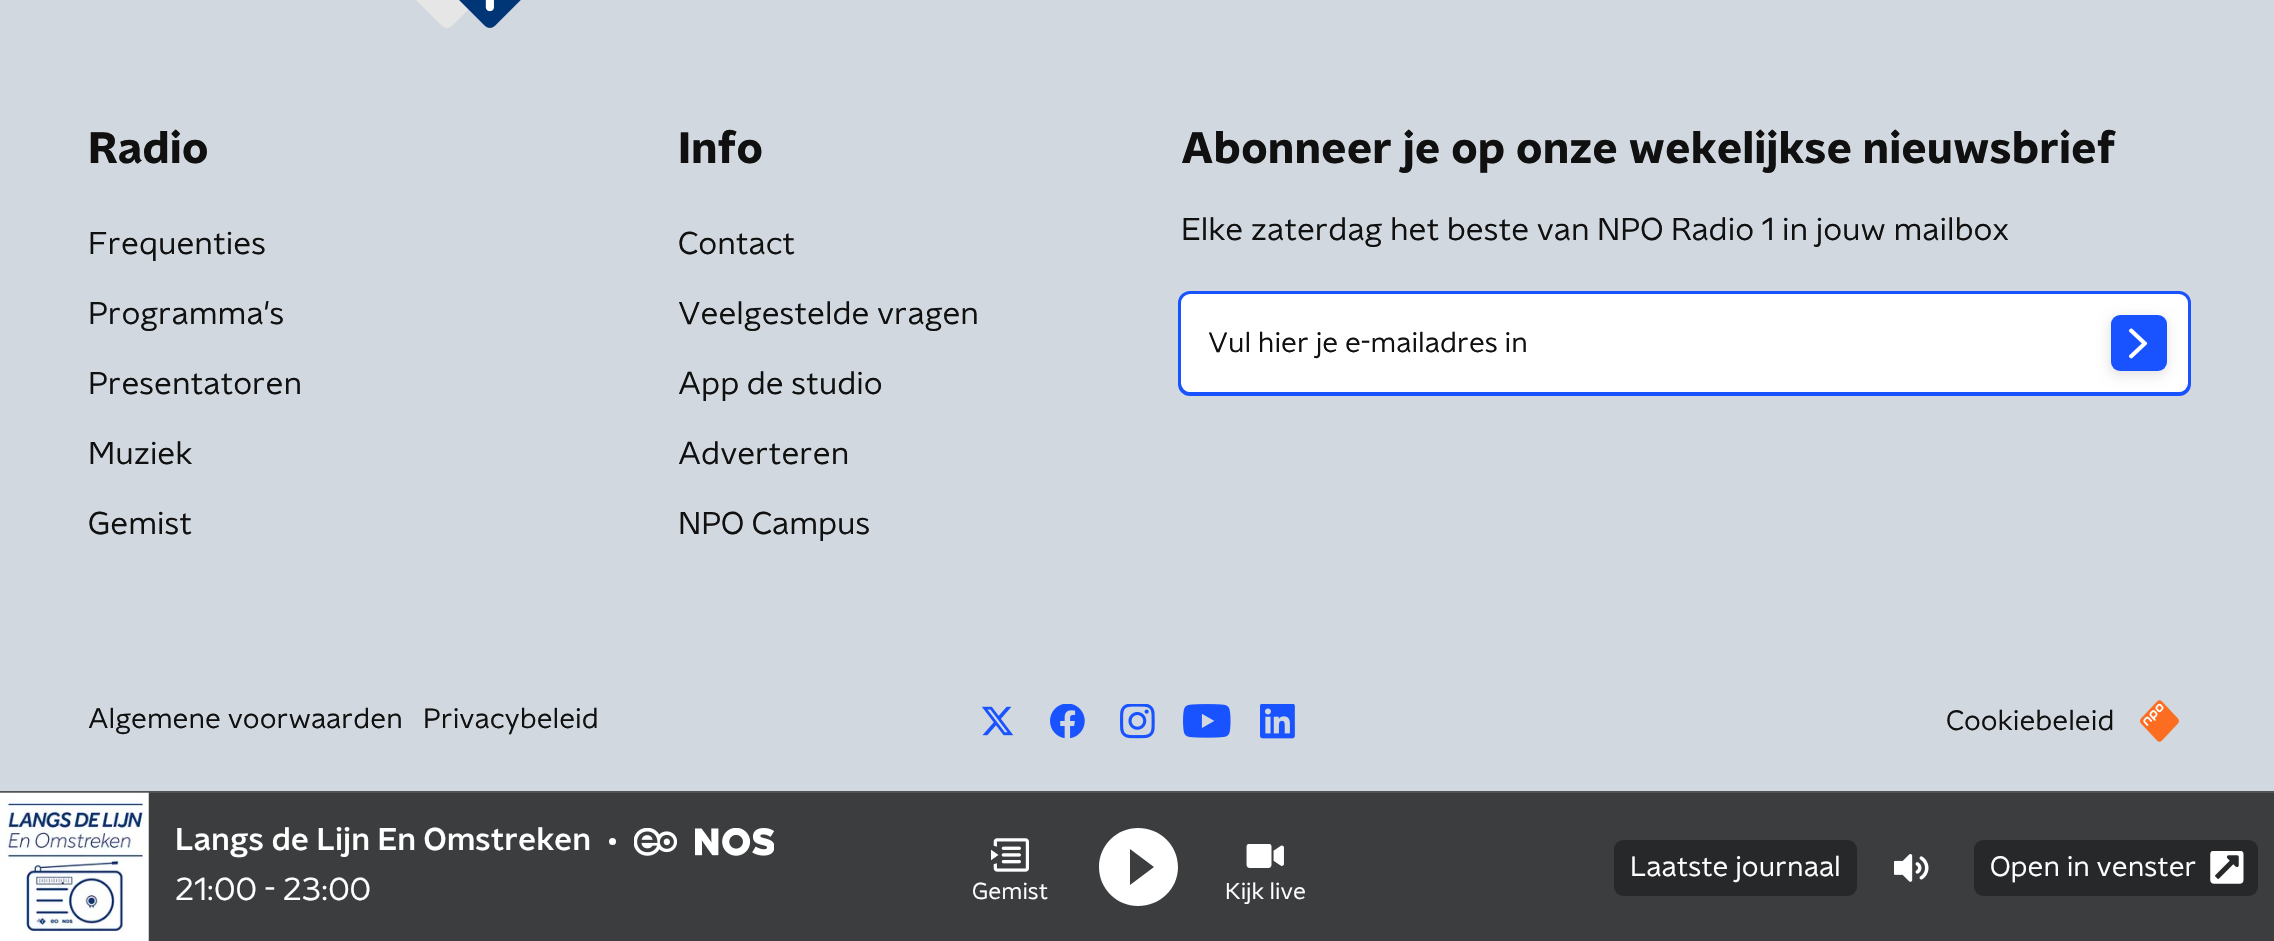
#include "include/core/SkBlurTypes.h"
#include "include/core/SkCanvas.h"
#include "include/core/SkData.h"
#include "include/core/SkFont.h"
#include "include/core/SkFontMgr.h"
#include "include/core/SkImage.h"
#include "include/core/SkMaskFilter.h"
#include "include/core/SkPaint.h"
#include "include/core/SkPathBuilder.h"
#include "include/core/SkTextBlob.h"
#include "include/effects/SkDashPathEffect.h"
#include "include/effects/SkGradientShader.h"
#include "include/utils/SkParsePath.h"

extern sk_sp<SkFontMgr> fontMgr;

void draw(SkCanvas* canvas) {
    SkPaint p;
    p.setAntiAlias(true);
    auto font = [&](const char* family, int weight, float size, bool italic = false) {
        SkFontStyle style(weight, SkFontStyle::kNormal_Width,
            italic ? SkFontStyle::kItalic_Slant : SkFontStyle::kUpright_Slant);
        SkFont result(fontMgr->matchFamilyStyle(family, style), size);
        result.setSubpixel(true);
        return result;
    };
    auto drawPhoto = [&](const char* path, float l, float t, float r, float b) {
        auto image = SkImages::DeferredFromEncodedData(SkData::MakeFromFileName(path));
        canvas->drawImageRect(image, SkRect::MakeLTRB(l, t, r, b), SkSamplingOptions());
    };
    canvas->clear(0xFFD1D8DF);
    drawPhoto("media/1.png", 416, 0, 521, 28);
    auto font1 = font("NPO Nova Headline", 700, 43.75f);
    p.setColor(0xFF101010);
    canvas->drawString("Radio", 88, 163, font1, p);
    auto font2 = font("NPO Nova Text", 400, 31.5f);
    {
        const struct { const char* s; float x, y; } items[] = {
            {"Frequenties", 88, 254},
            {"Programma's", 88, 324},
            {"Presentatoren", 88, 394},
            {"Muziek", 88, 464},
            {"Gemist", 88, 534},
        };
        for (auto [s, x, y] : items) {
            canvas->drawString(s, x, y, font2, p);
        }
    }
    canvas->drawString("Info", 678, 163, font1, p);
    {
        const struct { const char* s; float x, y; } items[] = {
            {"Contact", 678, 254},
            {"Veelgestelde vragen", 678, 324},
            {"App de studio", 678, 394},
            {"Adverteren", 678, 464},
            {"NPO Campus", 678, 534},
        };
        for (auto [s, x, y] : items) {
            canvas->drawString(s, x, y, font2, p);
        }
    }
    canvas->drawString("Abonneer je op onze wekelijkse nieuwsbrief", 1181, 163, font1, p);
    canvas->drawString("Elke zaterdag het beste van NPO Radio 1 in jouw mailbox", 1181, 240, font2, p);
    p.setStyle(SkPaint::kStroke_Style);
    p.setStrokeWidth(4);
    p.setColor(0xFF1952FF);
    canvas->drawRoundRect(SkRect::MakeLTRB(1180, 293, 2189, 394), 10, 10, p);
    p.setStyle(SkPaint::kFill_Style);
    p.setColor(0xFFFFFFFF);
    canvas->drawRoundRect(SkRect::MakeLTRB(1181, 294, 2188, 392), 9, 9, p);
    auto font3 = font("NPO Nova Text", 400, 28);
    p.setColor(0xFF101010);
    canvas->drawString("Vul hier je e-mailadres in", 1208, 352, font3, p);
    p.setColor(0x1A000000);
    p.setMaskFilter(SkMaskFilter::MakeBlur(kNormal_SkBlurStyle, 6));
    canvas->drawRoundRect(SkRect::MakeLTRB(2109, 317, 2168, 376), 11, 11, p);
    p.setMaskFilter(nullptr);
    p.setColor(0xFF1952FF);
    canvas->drawRoundRect(SkRect::MakeLTRB(2111, 315, 2167, 371), 9, 9, p);
    drawPhoto("media/2.png", 2128, 328, 2148, 359);
    p.setColor(0xFF101010);
    canvas->drawString("Algemene voorwaarden", 88, 728, font3, p);
    canvas->drawString("Privacybeleid", 423, 728, font3, p);
    drawPhoto("media/3.png", 982, 706, 1014, 736);
    drawPhoto("media/4.png", 1050, 704, 1085, 739);
    drawPhoto("media/5.png", 1120, 704, 1155, 739);
    drawPhoto("media/6.png", 1183, 704, 1231, 738);
    drawPhoto("media/7.png", 1260, 704, 1295, 739);
    canvas->drawString("Cookiebeleid", 1946, 730, font3, p);
    drawPhoto("media/8.png", 2140, 700, 2179, 742);
    p.setColor(0xFF3B3D3F);
    canvas->drawRect(SkRect::MakeLTRB(148, 793, 2274, 941), p);
    p.setColor(0xFF525354);
    canvas->drawRect(SkRect::MakeLTRB(0, 791, 2274, 793), p);
    drawPhoto("media/9.png", 0, 792, 149, 941);
    auto font4 = font("NPO Nova Text", 500, 31.5f);
    p.setColor(0xFFFFFFFF);
    canvas->drawString("Langs de Lijn En Omstreken", 175, 850, font4, p);
    canvas->drawCircle(612.5f, 841.5f, 3.5f, p);
    drawPhoto("media/10.png", 634, 828, 677, 856);
    drawPhoto("media/11.png", 695, 828, 774, 856);
    canvas->drawString("21:00 - 23:00", 175, 900, font2, p);
    p.setColor(0xFF262829);
    canvas->drawRoundRect(SkRect::MakeLTRB(1614, 840, 1857, 896), 9, 9, p);
    p.setColor(0xFFFFFFFF);
    canvas->drawString("Laatste journaal", 1630, 876, font3, p);
    drawPhoto("media/12.png", 1894, 854, 1929, 882);
    p.setColor(0xFF262829);
    canvas->drawRoundRect(SkRect::MakeLTRB(1974, 840, 2258, 896), 9, 9, p);
    p.setColor(0xFFFFFFFF);
    canvas->drawString("Open in venster", 1990, 876, font3, p);
    drawPhoto("media/13.png", 2210, 851, 2244, 884);
    drawPhoto("media/14.png", 991, 838, 1029, 872);
    auto font5 = font("NPO Nova Text", 400, 23);
    canvas->drawString("Gemist", 972, 899, font5, p);
    canvas->drawPath(SkPathBuilder().moveTo(1138, 828).cubicTo(1117, 828, 1099, 845, 1099, 867).cubicTo(1099, 889, 1117, 906, 1138, 906).cubicTo(1160, 906, 1178, 889, 1178, 867).cubicTo(1178, 845, 1160, 828, 1138, 828).close().moveTo(1130, 885).lineTo(1130, 849).lineTo(1154, 867).close().detach(), p);
    drawPhoto("media/15.png", 1246, 844, 1284, 868);
    canvas->drawString("Kijk live", 1225, 899, font5, p);
}
